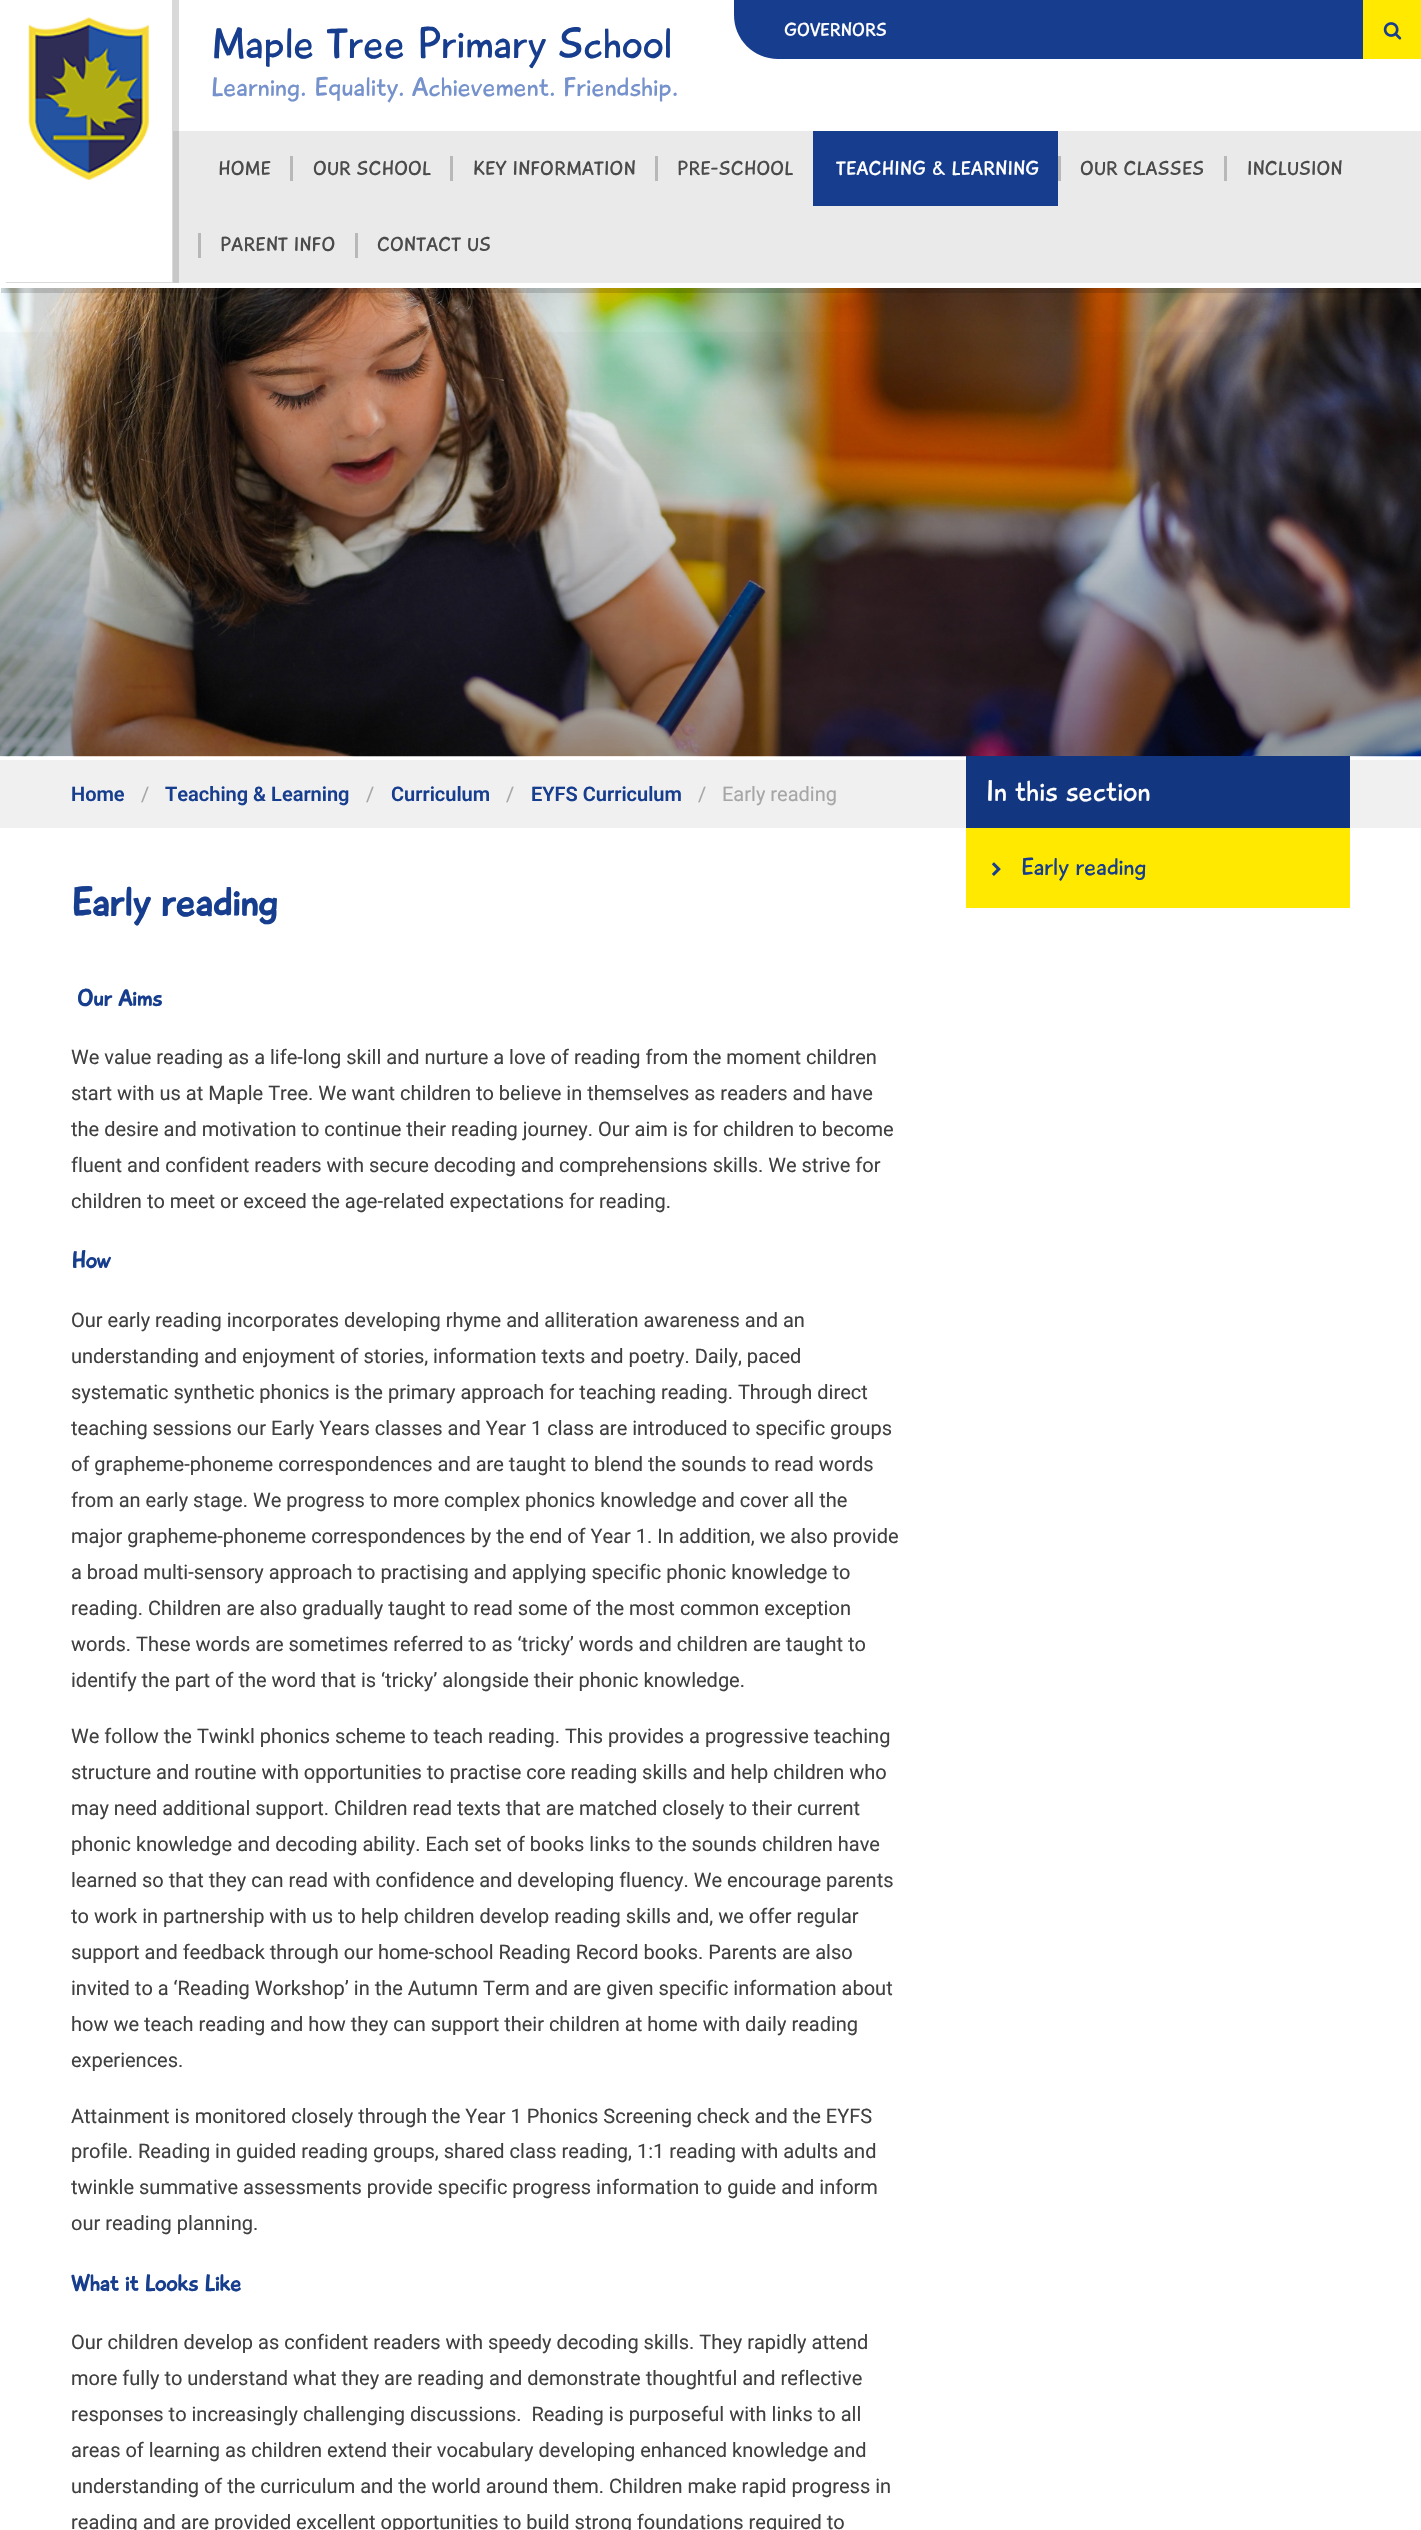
#include "include/core/SkBlurTypes.h"
#include "include/core/SkCanvas.h"
#include "include/core/SkData.h"
#include "include/core/SkFont.h"
#include "include/core/SkFontMgr.h"
#include "include/core/SkImage.h"
#include "include/core/SkMaskFilter.h"
#include "include/core/SkPaint.h"
#include "include/core/SkPathBuilder.h"
#include "include/core/SkTextBlob.h"
#include "include/effects/SkDashPathEffect.h"
#include "include/effects/SkGradientShader.h"
#include "include/utils/SkParsePath.h"

extern sk_sp<SkFontMgr> fontMgr;

void draw(SkCanvas* canvas) {
    SkPaint p;
    p.setAntiAlias(true);
    auto font = [&](const char* family, int weight, float size, bool italic = false) {
        SkFontStyle style(weight, SkFontStyle::kNormal_Width,
            italic ? SkFontStyle::kItalic_Slant : SkFontStyle::kUpright_Slant);
        SkFont result(fontMgr->matchFamilyStyle(family, style), size);
        result.setSubpixel(true);
        return result;
    };
    auto drawTracked = [&](const char* s, float x, float y, const SkFont& font, const SkPaint& ink, float letter, float word) {
        std::vector<SkGlyphID> glyphs(font.countText(s, strlen(s), SkTextEncoding::kUTF8));
        std::vector<float> xs(glyphs.size());
        font.textToGlyphs(s, strlen(s), SkTextEncoding::kUTF8, glyphs);
        font.getXPos(glyphs, xs, x);
        float extra = 0;
        for (size_t i = 0; i < glyphs.size(); i++) {
            xs[i] += extra;
            extra += letter + word * (glyphs[i] == font.unicharToGlyph(' '));
        }
        canvas->drawTextBlob(SkTextBlob::MakeFromPosHGlyphs(glyphs, xs, y, font), 0, 0, ink);
    };
    auto drawPhoto = [&](const char* path, float l, float t, float r, float b) {
        auto image = SkImages::DeferredFromEncodedData(SkData::MakeFromFileName(path));
        canvas->drawImageRect(image, SkRect::MakeLTRB(l, t, r, b), SkSamplingOptions());
    };
    canvas->clear(0xFFFFFFFF);
    drawPhoto("media/3.png", 0, 288, 1421, 757);
    p.setColor(0x26000000);
    canvas->drawPath(SkPathBuilder().moveTo(1, 288).lineTo(1, 293).lineTo(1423, 293).lineTo(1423, 5).lineTo(1421, 5).lineTo(1421, 288).close().detach(), p);
    p.setColor(0xFFEAEAEA);
    canvas->drawRect(SkRect::MakeLTRB(173, 131, 1421, 283), p);
    p.setColor(0x26000000);
    canvas->drawPath(SkPathBuilder().moveTo(6, 282).lineTo(6, 283).lineTo(179, 283).lineTo(179, 0).lineTo(172, 0).lineTo(172, 282).close().detach(), p);
    drawPhoto("media/1.png", 28, 17, 149, 180);
    auto font1 = font("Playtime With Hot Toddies", 400, 43.75f);
    p.setColor(0xFF173E8E);
    canvas->drawString("Maple Tree Primary School", 211, 58, font1, p);
    auto font2 = font("Playtime With Hot Toddies", 400, 27.5f);
    p.setColor(0xFF7692CC);
    canvas->drawString("Learning. Equality. Achievement. Friendship.", 211, 96, font2, p);
    p.setColor(0xFF173E8E);
    canvas->drawPath(SkPathBuilder().moveTo(734, 0).lineTo(1421, 0).lineTo(1421, 59).lineTo(778, 59).cubicTo(753.5f, 59, 734, 39.5f, 734, 15).close().detach(), p);
    auto font3 = font("Playtime With Hot Toddies", 400, 18.75f);
    p.setColor(0xFFFFFFFF);
    canvas->drawString("GOVERNORS", 784, 36, font3, p);
    p.setColor(0xFFFFE900);
    canvas->drawRect(SkRect::MakeLTRB(1363, 0, 1421, 59), p);
    drawPhoto("media/2.png", 1383, 22, 1402, 40);
    auto font4 = font("Playtime With Hot Toddies", 400, 20);
    p.setColor(0xFF4B4B4B);
    drawTracked("HOME", 218, 175, font4, p, 0.25f, 0);
    drawTracked("OUR SCHOOL", 313, 175, font4, p, 0.25f, 0);
    p.setColor(0xFFB8B8B8);
    canvas->drawRect(SkRect::MakeLTRB(290, 156, 293, 181), p);
    p.setColor(0xFF4B4B4B);
    drawTracked("KEY INFORMATION", 473, 175, font4, p, 0.25f, 0);
    p.setColor(0xFFB8B8B8);
    canvas->drawRect(SkRect::MakeLTRB(450, 156, 453, 181), p);
    p.setColor(0xFF4B4B4B);
    drawTracked("PRE-SCHOOL", 677, 175, font4, p, 0.25f, 0);
    p.setColor(0xFFB8B8B8);
    canvas->drawRect(SkRect::MakeLTRB(655, 156, 658, 181), p);
    p.setColor(0xFF173E8E);
    canvas->drawRect(SkRect::MakeLTRB(813, 131, 1058, 206), p);
    p.setColor(0xFFFFFFFF);
    drawTracked("TEACHING & LEARNING", 836, 175, font4, p, 0.25f, 0);
    p.setColor(0xFF4B4B4B);
    drawTracked("OUR CLASSES", 1080, 175, font4, p, 0.25f, 0);
    p.setColor(0xFFB8B8B8);
    canvas->drawRect(SkRect::MakeLTRB(1058, 156, 1061, 181), p);
    p.setColor(0xFF4B4B4B);
    drawTracked("INCLUSION", 1247, 175, font4, p, 0.25f, 0);
    p.setColor(0xFFB8B8B8);
    canvas->drawRect(SkRect::MakeLTRB(1224, 156, 1227, 181), p);
    p.setColor(0xFF4B4B4B);
    drawTracked("PARENT INFO", 220, 251, font4, p, 0.25f, 0);
    p.setColor(0xFFB8B8B8);
    canvas->drawRect(SkRect::MakeLTRB(198, 233, 201, 258), p);
    p.setColor(0xFF4B4B4B);
    drawTracked("CONTACT US", 377, 251, font4, p, 0.25f, 0);
    p.setColor(0xFFB8B8B8);
    canvas->drawRect(SkRect::MakeLTRB(355, 233, 358, 258), p);
    drawPhoto("media/4.png", 0, 332, 1421, 757);
    p.setColor(0xFFF0F0F0);
    canvas->drawRect(SkRect::MakeLTRB(0, 760, 1421, 828), p);
    p.setColor(0xFF123680);
    canvas->drawRect(SkRect::MakeLTRB(966, 756, 1350, 828), p);
    auto font5 = font("Playtime With Hot Toddies", 400, 30);
    p.setColor(0xFFFFFFFF);
    canvas->drawString("In this section", 986, 801, font5, p);
    p.setColor(0xFFFFE900);
    canvas->drawRect(SkRect::MakeLTRB(966, 828, 1350, 908), p);
    drawPhoto("media/5.png", 992, 862, 1001, 876);
    auto font6 = font("Playtime With Hot Toddies", 400, 25);
    p.setColor(0xFF173E8E);
    canvas->drawString("Early reading", 1021, 875, font6, p);
    auto font7 = font("Playtime With Hot Toddies", 700, 41.25f);
    canvas->drawString("Early reading", 71, 916, font7, p);
    auto font8 = font("Playtime With Hot Toddies", 700, 23.5f);
    canvas->drawString("Our Aims", 77, 1006, font8, p);
    auto font9 = font("Roboto", 400, 20);
    p.setColor(0xFF404040);
    {
        const struct { const char* s; float x, y; } items[] = {
            {"We value reading as a life-long skill and nurture a love of reading from the moment children", 71, 1064},
            {"start with us at Maple Tree. We want children to believe in themselves as readers and have", 71, 1100},
            {"the desire and motivation to continue their reading journey. Our aim is for children to become", 71, 1136},
            {"fluent and confident readers with secure decoding and comprehensions skills. We strive for", 71, 1172},
            {"children to meet or exceed the age-related expectations for reading.", 71, 1208},
        };
        for (auto [s, x, y] : items) {
            canvas->drawString(s, x, y, font9, p);
        }
    }
    p.setColor(0xFF173E8E);
    canvas->drawString("How", 71, 1268, font8, p);
    p.setColor(0xFF404040);
    {
        const struct { const char* s; float x, y; } items[] = {
            {"Our early reading incorporates developing rhyme and alliteration awareness and an", 71, 1327},
            {"understanding and enjoyment of stories, information texts and poetry. Daily, paced", 71, 1363},
            {"systematic synthetic phonics is the primary approach for teaching reading. Through direct", 71, 1399},
            {"teaching sessions our Early Years classes and Year 1 class are introduced to specific groups", 71, 1435},
            {"of grapheme-phoneme correspondences and are taught to blend the sounds to read words", 71, 1471},
            {"from an early stage. We progress to more complex phonics knowledge and cover all the", 71, 1507},
            {"major grapheme-phoneme correspondences by the end of Year 1. In addition, we also provide", 71, 1543},
            {"a broad multi-sensory approach to practising and applying specific phonic knowledge to", 71, 1579},
            {"reading. Children are also gradually taught to read some of the most common exception", 71, 1615},
            {"words. These words are sometimes referred to as ‘tricky’ words and children are taught to", 71, 1651},
            {"identify the part of the word that is ‘tricky’ alongside their phonic knowledge.", 71, 1687},
            {"We follow the Twinkl phonics scheme to teach reading. This provides a progressive teaching", 71, 1743},
            {"structure and routine with opportunities to practise core reading skills and help children who", 71, 1779},
            {"may need additional support. Children read texts that are matched closely to their current", 71, 1815},
            {"phonic knowledge and decoding ability. Each set of books links to the sounds children have", 71, 1851},
            {"learned so that they can read with confidence and developing fluency. We encourage parents", 71, 1887},
            {"to work in partnership with us to help children develop reading skills and, we offer regular", 71, 1923},
            {"support and feedback through our home-school Reading Record books. Parents are also", 71, 1959},
            {"invited to a ‘Reading Workshop’ in the Autumn Term and are given specific information about", 71, 1995},
            {"how we teach reading and how they can support their children at home with daily reading", 71, 2031},
            {"experiences.", 71, 2067},
            {"Attainment is monitored closely through the Year 1 Phonics Screening check and the EYFS", 71, 2123},
            {"profile. Reading in guided reading groups, shared class reading, 1:1 reading with adults and", 71, 2158},
            {"twinkle summative assessments provide specific progress information to guide and inform", 71, 2194},
            {"our reading planning.", 71, 2230},
        };
        for (auto [s, x, y] : items) {
            canvas->drawString(s, x, y, font9, p);
        }
    }
    p.setColor(0xFF173E8E);
    canvas->drawString("What it Looks Like", 71, 2291, font8, p);
    p.setColor(0xFF404040);
    {
        const struct { const char* s; float x, y; } items[] = {
            {"Our children develop as confident readers with speedy decoding skills. They rapidly attend", 71, 2349},
            {"more fully to understand what they are reading and demonstrate thoughtful and reflective", 71, 2385},
            {"responses to increasingly challenging discussions.  Reading is purposeful with links to all", 71, 2421},
            {"areas of learning as children extend their vocabulary developing enhanced knowledge and", 71, 2457},
            {"understanding of the curriculum and the world around them. Children make rapid progress in", 71, 2493},
            {"reading and are provided excellent opportunities to build strong foundations required to", 71, 2529},
        };
        for (auto [s, x, y] : items) {
            canvas->drawString(s, x, y, font9, p);
        }
    }
    auto font10 = font("Roboto", 600, 20);
    p.setColor(0xFF173E8E);
    canvas->drawString("Home", 71, 801, font10, p);
    p.setColor(0xFFA6A6A6);
    canvas->drawString("/", 141, 801, font9, p);
    p.setColor(0xFF173E8E);
    canvas->drawString("Teaching & Learning", 165, 801, font10, p);
    p.setColor(0xFFA6A6A6);
    canvas->drawString("/", 366, 801, font9, p);
    p.setColor(0xFF173E8E);
    canvas->drawString("Curriculum", 391, 801, font10, p);
    p.setColor(0xFFA6A6A6);
    canvas->drawString("/", 506, 801, font9, p);
    p.setColor(0xFF173E8E);
    canvas->drawString("EYFS Curriculum", 531, 801, font10, p);
    p.setColor(0xFFA6A6A6);
    canvas->drawString("/", 698, 801, font9, p);
    canvas->drawString("Early reading", 722, 801, font9, p);
}
